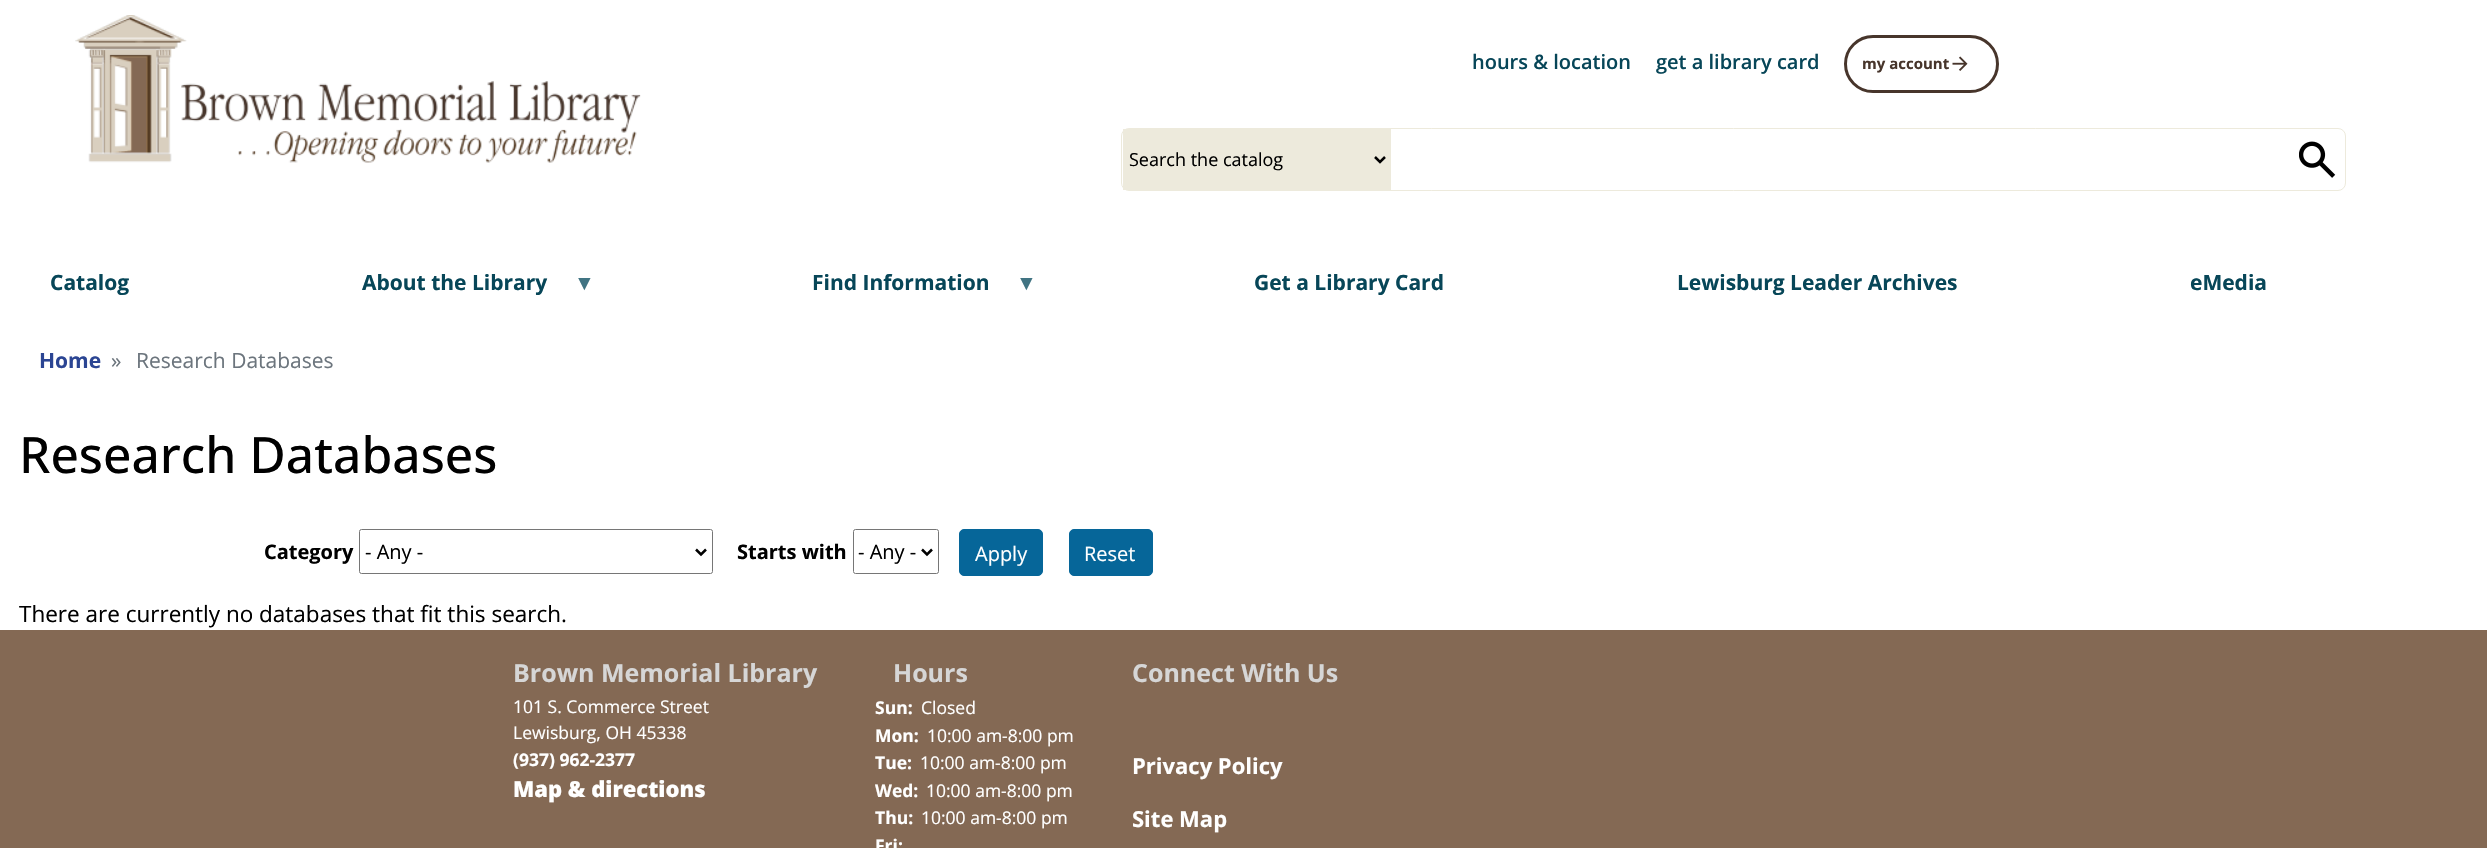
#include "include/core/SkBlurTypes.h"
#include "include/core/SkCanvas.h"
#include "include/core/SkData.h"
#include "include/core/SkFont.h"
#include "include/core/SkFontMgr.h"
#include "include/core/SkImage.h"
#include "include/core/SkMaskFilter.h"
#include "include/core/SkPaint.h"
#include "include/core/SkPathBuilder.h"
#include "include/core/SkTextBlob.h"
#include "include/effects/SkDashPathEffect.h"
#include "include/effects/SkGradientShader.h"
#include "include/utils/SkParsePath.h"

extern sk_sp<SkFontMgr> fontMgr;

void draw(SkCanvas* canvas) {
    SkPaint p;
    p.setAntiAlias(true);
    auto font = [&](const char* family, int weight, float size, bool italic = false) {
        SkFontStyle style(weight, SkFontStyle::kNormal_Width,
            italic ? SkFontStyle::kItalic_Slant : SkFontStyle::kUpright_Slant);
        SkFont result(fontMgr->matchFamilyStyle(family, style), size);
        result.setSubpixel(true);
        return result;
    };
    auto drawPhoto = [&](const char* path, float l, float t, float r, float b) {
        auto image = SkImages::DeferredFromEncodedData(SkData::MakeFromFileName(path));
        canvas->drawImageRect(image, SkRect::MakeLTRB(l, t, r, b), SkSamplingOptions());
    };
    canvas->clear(0xFFFFFFFF);
    drawPhoto("media/1.png", 75, 15, 641, 163);
    auto font1 = font("Open Sans", 600, 20);
    p.setColor(0xFF074658);
    canvas->drawString("hours & location", 1472, 69, font1, p);
    canvas->drawString("get a library card", 1656, 69, font1, p);
    p.setStyle(SkPaint::kStroke_Style);
    p.setStrokeWidth(3);
    p.setColor(0xFF47352B);
    canvas->drawRoundRect(SkRect::MakeLTRB(1845.5f, 36.5f, 1997.5f, 91.5f), 27.5f, 27.5f, p);
    auto font2 = font("Open Sans", 700, 15);
    p.setStyle(SkPaint::kFill_Style);
    canvas->drawString("my account", 1862, 69, font2, p);
    drawPhoto("media/2.png", 1952, 56, 1968, 71);
    p.setStyle(SkPaint::kStroke_Style);
    p.setStrokeWidth(1);
    p.setColor(0xFFEDEADC);
    canvas->drawRoundRect(SkRect::MakeLTRB(1121.5f, 128.5f, 2345.5f, 190.5f), 7.5f, 7.5f, p);
    p.setStyle(SkPaint::kFill_Style);
    canvas->drawRect(SkRect::MakeLTRB(1123, 129, 1391, 190), p);
    p.setStyle(SkPaint::kStroke_Style);
    p.setStrokeWidth(2.5f);
    p.setColor(0xFF000000);
    canvas->drawPath(SkPathBuilder().moveTo(1375, 157).lineTo(1380, 162).lineTo(1385, 157).detach(), p);
    auto font3 = font("Open Sans", 400, 18);
    p.setStyle(SkPaint::kFill_Style);
    canvas->drawString("Search the catalog", 1129, 166, font3, p);
    drawPhoto("media/3.png", 2299, 141, 2336, 178);
    auto font4 = font("Open Sans", 700, 21);
    p.setColor(0xFF074658);
    canvas->drawString("Catalog", 50, 290, font4, p);
    canvas->drawString("About the Library", 362, 290, font4, p);
    auto font5 = font("Liberation Sans", 700, 21);
    p.setColor(0xFF417483);
    canvas->drawString("▼", 574, 290, font5, p);
    p.setColor(0xFF074658);
    canvas->drawString("Find Information", 812, 290, font4, p);
    p.setColor(0xFF417483);
    canvas->drawString("▼", 1016, 290, font5, p);
    p.setColor(0xFF074658);
    {
        const struct { const char* s; float x, y; } items[] = {
            {"Get a Library Card", 1254, 290},
            {"Lewisburg Leader Archives", 1677, 290},
            {"eMedia", 2190, 290},
        };
        for (auto [s, x, y] : items) {
            canvas->drawString(s, x, y, font4, p);
        }
    }
    p.setColor(0xFF2B4593);
    canvas->drawString("Home", 39, 368, font4, p);
    auto font6 = font("Open Sans", 400, 21);
    p.setColor(0xFF6C757D);
    canvas->drawString("»", 111, 368, font6, p);
    canvas->drawString("Research Databases", 136, 368, font6, p);
    auto font7 = font("Open Sans", 500, 50);
    p.setColor(0xFF000000);
    canvas->drawString("Research Databases", 19, 473, font7, p);
    auto font8 = font("Open Sans", 700, 20);
    canvas->drawString("Category", 264, 559, font8, p);
    p.setStyle(SkPaint::kStroke_Style);
    p.setStrokeWidth(1);
    p.setColor(0xFF767676);
    canvas->drawRoundRect(SkRect::MakeLTRB(359.5f, 529.5f, 712.5f, 573.5f), 2, 2, p);
    p.setStrokeWidth(2.5f);
    p.setColor(0xFF000000);
    canvas->drawPath(SkPathBuilder().moveTo(696, 549.5f).lineTo(701, 554.5f).lineTo(706, 549.5f).detach(), p);
    auto font9 = font("Open Sans", 400, 20);
    p.setStyle(SkPaint::kFill_Style);
    canvas->drawString("- Any -", 365, 559, font9, p);
    canvas->drawString("Starts with", 737, 559, font8, p);
    p.setStyle(SkPaint::kStroke_Style);
    p.setStrokeWidth(1);
    p.setColor(0xFF767676);
    canvas->drawRoundRect(SkRect::MakeLTRB(853.5f, 529.5f, 938.5f, 573.5f), 2, 2, p);
    p.setStrokeWidth(2.5f);
    p.setColor(0xFF000000);
    canvas->drawPath(SkPathBuilder().moveTo(922, 549.5f).lineTo(927, 554.5f).lineTo(932, 549.5f).detach(), p);
    p.setStyle(SkPaint::kFill_Style);
    canvas->drawString("- Any -", 858, 559, font9, p);
    p.setColor(0xFF066699);
    canvas->drawRoundRect(SkRect::MakeLTRB(959.5f, 529.5f, 1042.5f, 575.5f), 4.5f, 4.5f, p);
    p.setStyle(SkPaint::kStroke_Style);
    p.setStrokeWidth(1);
    canvas->drawRoundRect(SkRect::MakeLTRB(959.5f, 529.5f, 1042.5f, 575.5f), 4.5f, 4.5f, p);
    p.setStyle(SkPaint::kFill_Style);
    p.setColor(0xFFFFFFFF);
    canvas->drawString("Apply", 975, 561, font9, p);
    p.setColor(0xFF066699);
    canvas->drawRoundRect(SkRect::MakeLTRB(1069.5f, 529.5f, 1152.5f, 575.5f), 4.5f, 4.5f, p);
    p.setStyle(SkPaint::kStroke_Style);
    canvas->drawRoundRect(SkRect::MakeLTRB(1069.5f, 529.5f, 1152.5f, 575.5f), 4.5f, 4.5f, p);
    p.setStyle(SkPaint::kFill_Style);
    p.setColor(0xFFFFFFFF);
    canvas->drawString("Reset", 1084, 561, font9, p);
    auto font10 = font("Open Sans", 400, 22.5f);
    p.setColor(0xFF000000);
    canvas->drawString("There are currently no databases that fit this search.", 19, 622, font10, p);
    p.setColor(0xFF846954);
    canvas->drawRect(SkRect::MakeLTRB(0, 630, 2487, 848), p);
    auto font11 = font("Open Sans", 700, 25);
    p.setColor(0xFFD6D6D6);
    canvas->drawString("Brown Memorial Library", 513, 682, font11, p);
    auto font12 = font("Open Sans", 400, 17.5f);
    p.setColor(0xFFFFFFFF);
    canvas->drawString("101 S. Commerce Street", 513, 713, font12, p);
    canvas->drawString("Lewisburg, OH 45338", 513, 739, font12, p);
    auto font13 = font("Open Sans", 700, 17.5f);
    canvas->drawString("(937) 962-2377", 513, 766, font13, p);
    auto font14 = font("Open Sans", 800, 22);
    canvas->drawString("Map & directions", 513, 797, font14, p);
    p.setColor(0xFFD6D6D6);
    canvas->drawString("Hours", 893, 682, font11, p);
    p.setColor(0xFFFFFFFF);
    canvas->drawString("Sun:", 875, 714, font13, p);
    canvas->drawString("Closed", 921, 714, font12, p);
    canvas->drawString("Mon:", 875, 742, font13, p);
    canvas->drawString("10:00 am-8:00 pm", 927, 742, font12, p);
    canvas->drawString("Tue:", 875, 769, font13, p);
    canvas->drawString("10:00 am-8:00 pm", 920, 769, font12, p);
    canvas->drawString("Wed:", 875, 797, font13, p);
    canvas->drawString("10:00 am-8:00 pm", 926, 797, font12, p);
    canvas->drawString("Thu:", 875, 824, font13, p);
    canvas->drawString("10:00 am-8:00 pm", 921, 824, font12, p);
    canvas->drawString("Fri:", 875, 852, font13, p);
    p.setColor(0xFFD6D6D6);
    canvas->drawString("Connect With Us", 1132, 682, font11, p);
    auto font15 = font("Open Sans", 700, 22);
    p.setColor(0xFFFFFFFF);
    canvas->drawString("Privacy Policy", 1132, 774, font15, p);
    canvas->drawString("Site Map", 1132, 827, font15, p);
}
